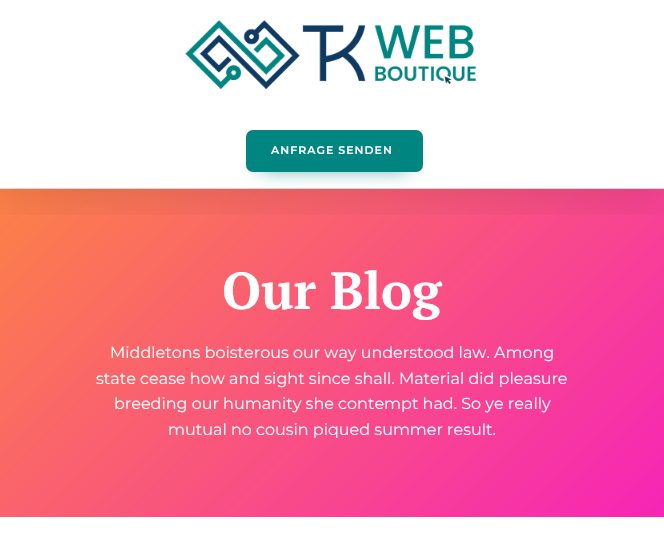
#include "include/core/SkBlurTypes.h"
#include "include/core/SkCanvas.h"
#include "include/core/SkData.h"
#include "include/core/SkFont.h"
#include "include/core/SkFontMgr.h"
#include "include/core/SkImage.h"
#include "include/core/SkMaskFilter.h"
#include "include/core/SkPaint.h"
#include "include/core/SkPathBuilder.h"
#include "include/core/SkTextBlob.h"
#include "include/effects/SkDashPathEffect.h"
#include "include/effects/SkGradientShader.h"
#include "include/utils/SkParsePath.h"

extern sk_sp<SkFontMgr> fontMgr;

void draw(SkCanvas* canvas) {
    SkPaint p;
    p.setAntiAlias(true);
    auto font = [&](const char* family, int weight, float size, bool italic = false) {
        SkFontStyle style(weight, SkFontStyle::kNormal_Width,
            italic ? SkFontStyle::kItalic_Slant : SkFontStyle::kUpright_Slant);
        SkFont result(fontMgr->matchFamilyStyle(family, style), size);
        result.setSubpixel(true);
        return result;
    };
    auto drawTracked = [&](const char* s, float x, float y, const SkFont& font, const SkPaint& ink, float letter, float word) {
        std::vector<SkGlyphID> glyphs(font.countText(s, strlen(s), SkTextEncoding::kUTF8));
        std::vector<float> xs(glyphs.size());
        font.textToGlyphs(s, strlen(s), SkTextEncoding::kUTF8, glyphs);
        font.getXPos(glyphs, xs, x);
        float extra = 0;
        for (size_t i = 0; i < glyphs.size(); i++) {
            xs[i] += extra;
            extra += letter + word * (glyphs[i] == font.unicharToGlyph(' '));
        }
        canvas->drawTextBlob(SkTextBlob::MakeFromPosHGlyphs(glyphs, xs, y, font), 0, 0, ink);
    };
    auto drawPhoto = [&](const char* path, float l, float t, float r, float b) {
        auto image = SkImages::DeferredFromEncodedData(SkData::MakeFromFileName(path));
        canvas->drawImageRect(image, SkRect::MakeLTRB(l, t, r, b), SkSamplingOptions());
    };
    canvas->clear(0xFFFFFFFF);
    p.setColor(0xFFE6E6E6);
    canvas->drawRect(SkRect::MakeLTRB(0, 188, 664, 189), p);
    {
        const SkColor colors[] = {0xFFFD9332, 0xFFF623B9};
        const float stops[] = {0, 1};
        const SkPoint ends[] = {{33, -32}, {632, 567}};
        p.setShader(SkGradientShader::MakeLinear(ends, colors, stops, 2, SkTileMode::kClamp));
        p.setAlpha(255);
    }
    canvas->drawRect(SkRect::MakeLTRB(0, 189, 664, 517), p);
    canvas->save();
    canvas->clipRect(SkRect::MakeLTRB(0, 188, 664, 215));
    p.setShader(nullptr);
    p.setColor(0x1A000000);
    p.setMaskFilter(SkMaskFilter::MakeBlur(kNormal_SkBlurStyle, 20));
    canvas->drawRect(SkRect::MakeLTRB(0, 10, 664, 198), p);
    p.setMaskFilter(nullptr);
    canvas->restore();
    drawPhoto("media/1.png", 185, 20, 477, 90);
    p.setColor(0xFF018581);
    p.setMaskFilter(SkMaskFilter::MakeBlur(kNormal_SkBlurStyle, 10));
    canvas->drawRect(SkRect::MakeLTRB(261, 155, 408, 167), p);
    p.setMaskFilter(nullptr);
    p.setColor(0xFF008581);
    canvas->drawRoundRect(SkRect::MakeLTRB(246, 130, 423, 172), 7, 7, p);
    auto font1 = font("Montserrat", 600, 11);
    p.setColor(0xFFFFFFFF);
    drawTracked("ANFRAGE SENDEN", 271, 154, font1, p, 1, 0);
    auto font2 = font("PT Serif", 700, 52);
    canvas->drawString("Our Blog", 222, 309, font2, p);
    auto font3 = font("Montserrat", 400, 16);
    {
        const struct { const char* s; float x, y; } items[] = {
            {"Middletons boisterous our way understood law. Among", 110, 358},
            {"state cease how and sight since shall. Material did pleasure", 96, 384},
            {"breeding our humanity she contempt had. So ye really", 114, 409},
            {"mutual no cousin piqued summer result.", 168, 435},
        };
        for (auto [s, x, y] : items) {
            canvas->drawString(s, x, y, font3, p);
        }
    }
}
